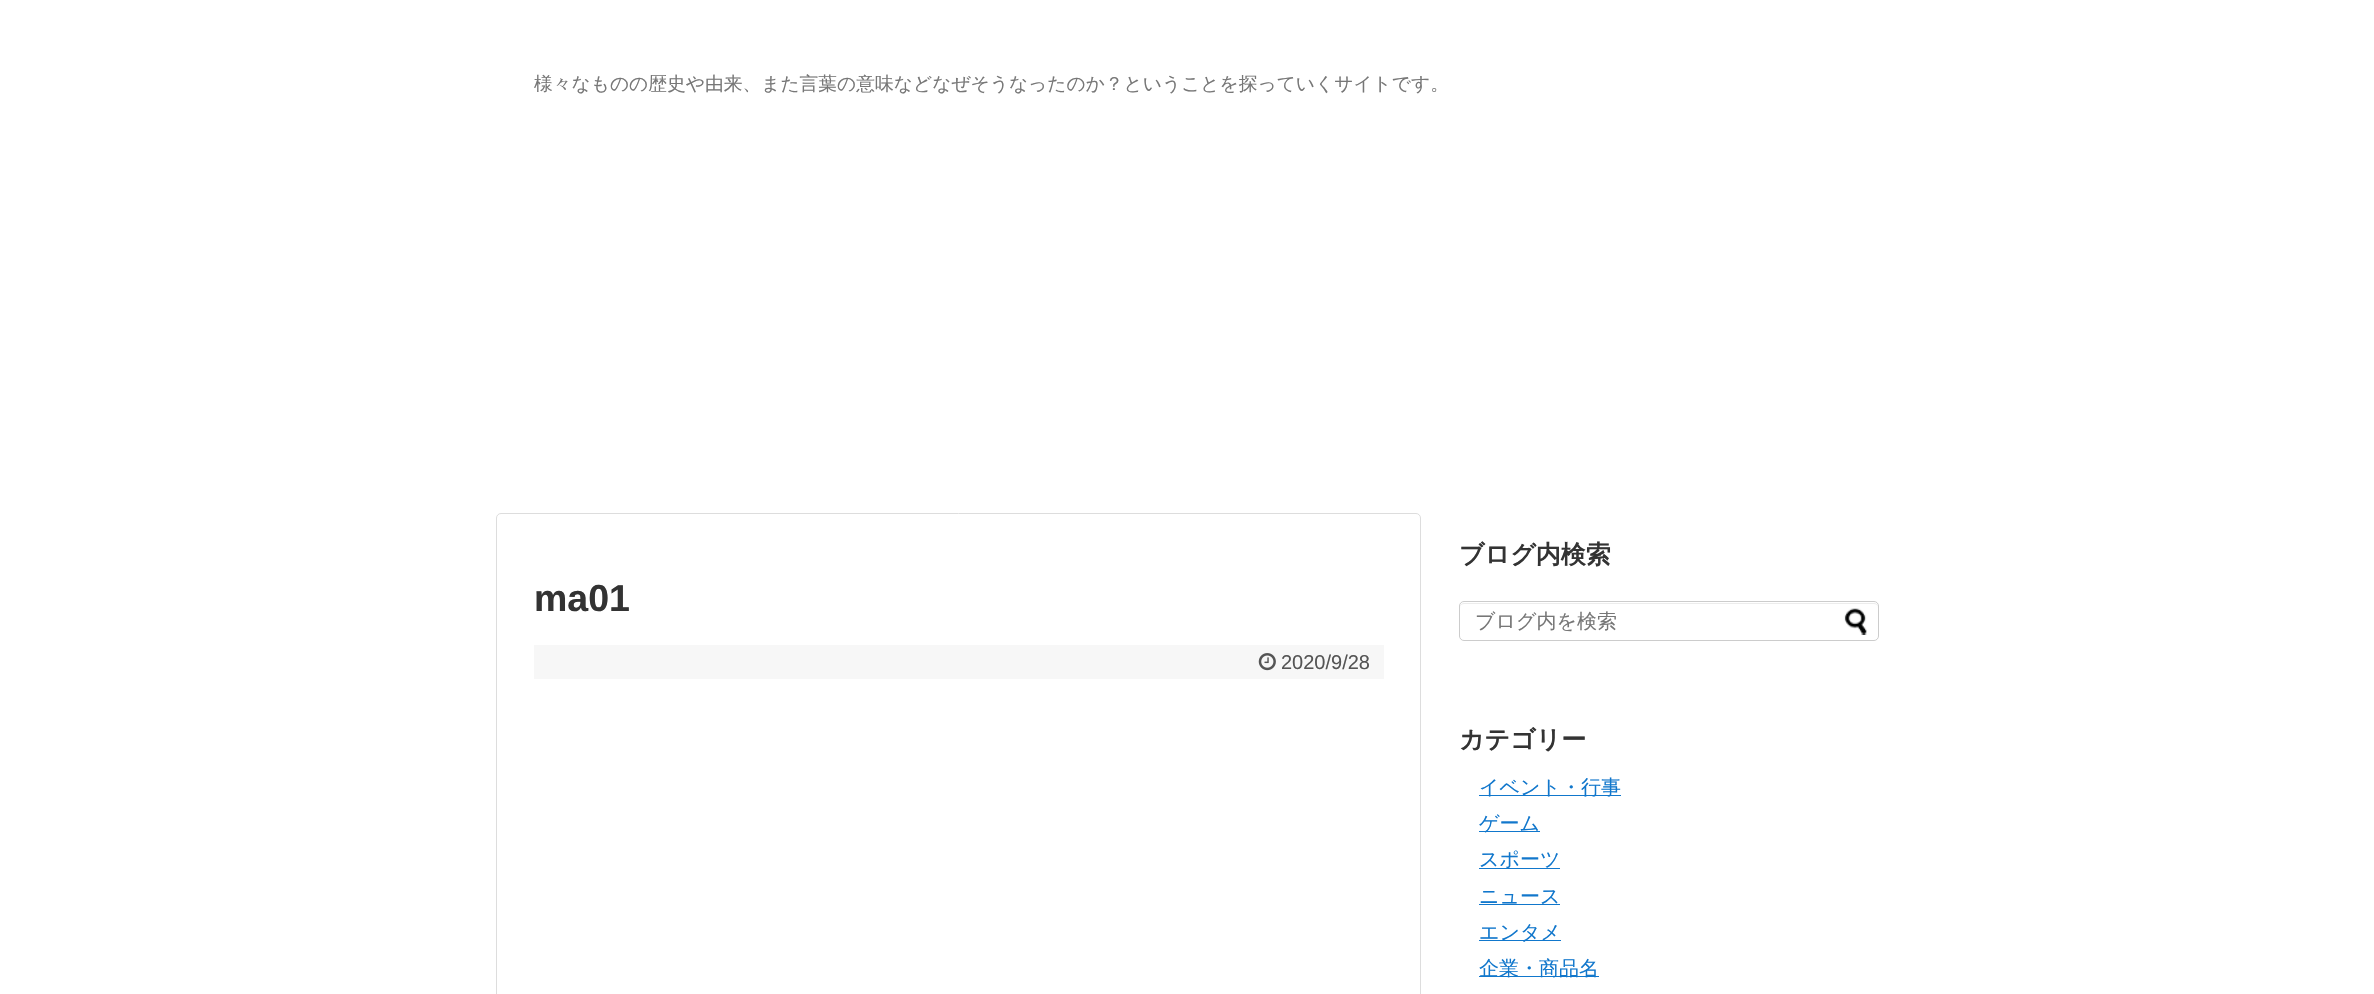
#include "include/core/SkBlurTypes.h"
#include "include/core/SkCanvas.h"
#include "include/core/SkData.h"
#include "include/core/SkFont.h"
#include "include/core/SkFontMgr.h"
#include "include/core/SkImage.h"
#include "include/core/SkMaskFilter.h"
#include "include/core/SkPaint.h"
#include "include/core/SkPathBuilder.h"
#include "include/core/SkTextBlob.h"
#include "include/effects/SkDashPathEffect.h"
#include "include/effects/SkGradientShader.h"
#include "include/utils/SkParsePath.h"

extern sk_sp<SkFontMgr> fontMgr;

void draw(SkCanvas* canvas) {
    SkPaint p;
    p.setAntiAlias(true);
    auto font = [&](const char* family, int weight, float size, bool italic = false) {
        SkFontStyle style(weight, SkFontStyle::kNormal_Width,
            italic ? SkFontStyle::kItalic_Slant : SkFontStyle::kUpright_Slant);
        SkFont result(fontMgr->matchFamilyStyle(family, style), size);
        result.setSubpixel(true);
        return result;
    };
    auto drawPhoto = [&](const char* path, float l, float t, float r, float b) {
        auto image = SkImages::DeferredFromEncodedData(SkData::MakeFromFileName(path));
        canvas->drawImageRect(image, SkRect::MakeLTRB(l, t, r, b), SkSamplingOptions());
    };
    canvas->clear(0xFFFFFFFF);
    auto font1 = font("WenQuanYi Zen Hei", 500, 18.75f);
    p.setColor(0xFF777777);
    canvas->drawString("様々なものの歴史や由来、また言葉の意味などなぜそうなったのか？ということを探っていくサイトです。", 534, 90, font1, p);
    p.setStyle(SkPaint::kStroke_Style);
    p.setStrokeWidth(1);
    p.setColor(0xFFDDDDDD);
    canvas->drawRoundRect(SkRect::MakeLTRB(496.5f, 513.5f, 1420.5f, 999.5f), 4.5f, 4.5f, p);
    auto font2 = font("Liberation Sans", 700, 37.5f);
    p.setStyle(SkPaint::kFill_Style);
    p.setColor(0xFF333333);
    canvas->drawString("ma01", 534, 611, font2, p);
    p.setColor(0xFFF7F7F7);
    canvas->drawRect(SkRect::MakeLTRB(534, 645, 1384, 679), p);
    drawPhoto("media/1.png", 1258, 653, 1276, 671);
    auto font3 = font("Liberation Sans", 400, 20);
    p.setColor(0xFF555555);
    canvas->drawString("2020/9/28", 1281, 669, font3, p);
    auto font4 = font("WenQuanYi Zen Hei", 700, 25);
    p.setColor(0xFF333333);
    canvas->drawString("ブログ内検索", 1459, 563, font4, p);
    p.setColor(0xFFECECEC);
    canvas->drawPath(SkPathBuilder().moveTo(1464, 604).lineTo(1874, 604).cubicTo(1876, 604, 1878, 605, 1878, 608).lineTo(1878, 607).cubicTo(1878, 605, 1876, 603, 1874, 603).lineTo(1464, 603).cubicTo(1462, 603, 1460, 605, 1460, 607).lineTo(1460, 608).cubicTo(1460, 605, 1462, 604, 1464, 604).close().detach(), p);
    p.setStyle(SkPaint::kStroke_Style);
    p.setColor(0xFFCCCCCC);
    canvas->drawRoundRect(SkRect::MakeLTRB(1459.5f, 601.5f, 1878.5f, 640.5f), 4.5f, 4.5f, p);
    auto font5 = font("WenQuanYi Zen Hei", 500, 20);
    p.setStyle(SkPaint::kFill_Style);
    p.setColor(0xFF777777);
    canvas->drawString("ブログ内を検索", 1475, 628, font5, p);
    drawPhoto("media/2.png", 1844, 608, 1867, 635);
    p.setColor(0xFF333333);
    canvas->drawString("カテゴリー", 1459, 748, font4, p);
    p.setColor(0xFF1177CC);
    canvas->drawRect(SkRect::MakeLTRB(1479, 795, 1621, 796), p);
    canvas->drawString("イベント・行事", 1479, 794, font5, p);
    canvas->drawRect(SkRect::MakeLTRB(1479, 831, 1540, 832), p);
    canvas->drawString("ゲーム", 1479, 830, font5, p);
    canvas->drawRect(SkRect::MakeLTRB(1479, 868, 1560, 869), p);
    canvas->drawString("スポーツ", 1479, 866, font5, p);
    canvas->drawString("ニュース", 1479, 903, font5, p);
    canvas->drawRect(SkRect::MakeLTRB(1479, 904, 1560, 905), p);
    canvas->drawRect(SkRect::MakeLTRB(1479, 940, 1561, 941), p);
    canvas->drawString("エンタメ", 1479, 939, font5, p);
    canvas->drawRect(SkRect::MakeLTRB(1479, 976, 1599, 977), p);
    canvas->drawString("企業・商品名", 1479, 975, font5, p);
}
